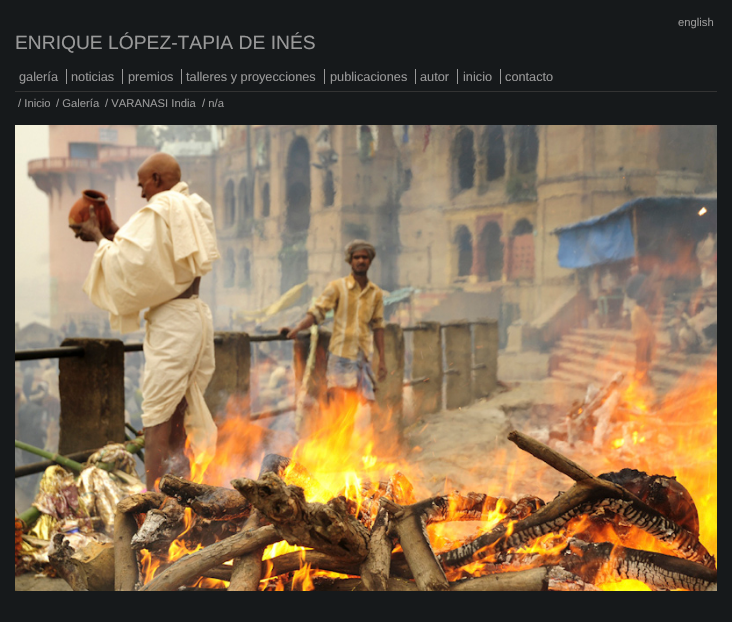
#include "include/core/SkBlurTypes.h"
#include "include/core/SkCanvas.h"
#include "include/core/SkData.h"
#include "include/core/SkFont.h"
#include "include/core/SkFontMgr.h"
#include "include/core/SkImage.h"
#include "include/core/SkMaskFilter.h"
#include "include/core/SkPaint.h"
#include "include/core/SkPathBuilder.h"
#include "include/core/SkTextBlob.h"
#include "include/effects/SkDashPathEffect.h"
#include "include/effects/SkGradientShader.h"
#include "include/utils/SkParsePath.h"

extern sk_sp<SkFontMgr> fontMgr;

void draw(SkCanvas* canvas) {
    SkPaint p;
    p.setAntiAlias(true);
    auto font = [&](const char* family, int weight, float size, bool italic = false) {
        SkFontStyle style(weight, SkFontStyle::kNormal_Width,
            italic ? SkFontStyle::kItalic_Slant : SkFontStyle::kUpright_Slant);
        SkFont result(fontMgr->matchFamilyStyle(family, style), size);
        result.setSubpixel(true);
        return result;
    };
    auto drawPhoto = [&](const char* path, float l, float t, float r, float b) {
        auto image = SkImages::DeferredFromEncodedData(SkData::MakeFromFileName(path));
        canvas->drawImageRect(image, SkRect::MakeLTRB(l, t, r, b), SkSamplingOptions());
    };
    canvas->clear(0xFF16191B);
    p.setColor(0xFF333333);
    canvas->drawRect(SkRect::MakeLTRB(15, 91, 717, 92), p);
    auto font1 = font("Liberation Sans", 400, 11.25f);
    p.setColor(0xFF999999);
    canvas->drawString("english", 678, 26, font1, p);
    auto font2 = font("Liberation Sans", 400, 19.25f);
    canvas->drawString("ENRIQUE LÓPEZ-TAPIA DE INÉS", 15, 49, font2, p);
    auto font3 = font("Liberation Sans", 400, 12.75f);
    canvas->drawString("galería", 19, 81, font3, p);
    canvas->drawString("noticias", 71, 81, font3, p);
    canvas->drawRect(SkRect::MakeLTRB(66, 69, 67, 84), p);
    canvas->drawString("premios", 128, 81, font3, p);
    canvas->drawRect(SkRect::MakeLTRB(122, 69, 123, 84), p);
    canvas->drawString("talleres y proyecciones", 186, 81, font3, p);
    canvas->drawRect(SkRect::MakeLTRB(181, 69, 182, 84), p);
    canvas->drawString("publicaciones", 330, 81, font3, p);
    canvas->drawRect(SkRect::MakeLTRB(324, 69, 325, 84), p);
    canvas->drawString("autor", 420, 81, font3, p);
    canvas->drawRect(SkRect::MakeLTRB(415, 69, 416, 84), p);
    canvas->drawString("inicio", 463, 81, font3, p);
    canvas->drawRect(SkRect::MakeLTRB(457, 69, 458, 84), p);
    canvas->drawString("contacto", 505, 81, font3, p);
    canvas->drawRect(SkRect::MakeLTRB(500, 69, 501, 84), p);
    {
        const struct { const char* s; float x, y; } items[] = {
            {"/ Inicio", 18, 107},
            {"/ Galería", 56, 107},
            {"/ VARANASI India", 105, 107},
            {"/ n/a", 202, 107},
        };
        for (auto [s, x, y] : items) {
            canvas->drawString(s, x, y, font1, p);
        }
    }
    drawPhoto("media/1.png", 15, 125, 717, 591);
}
